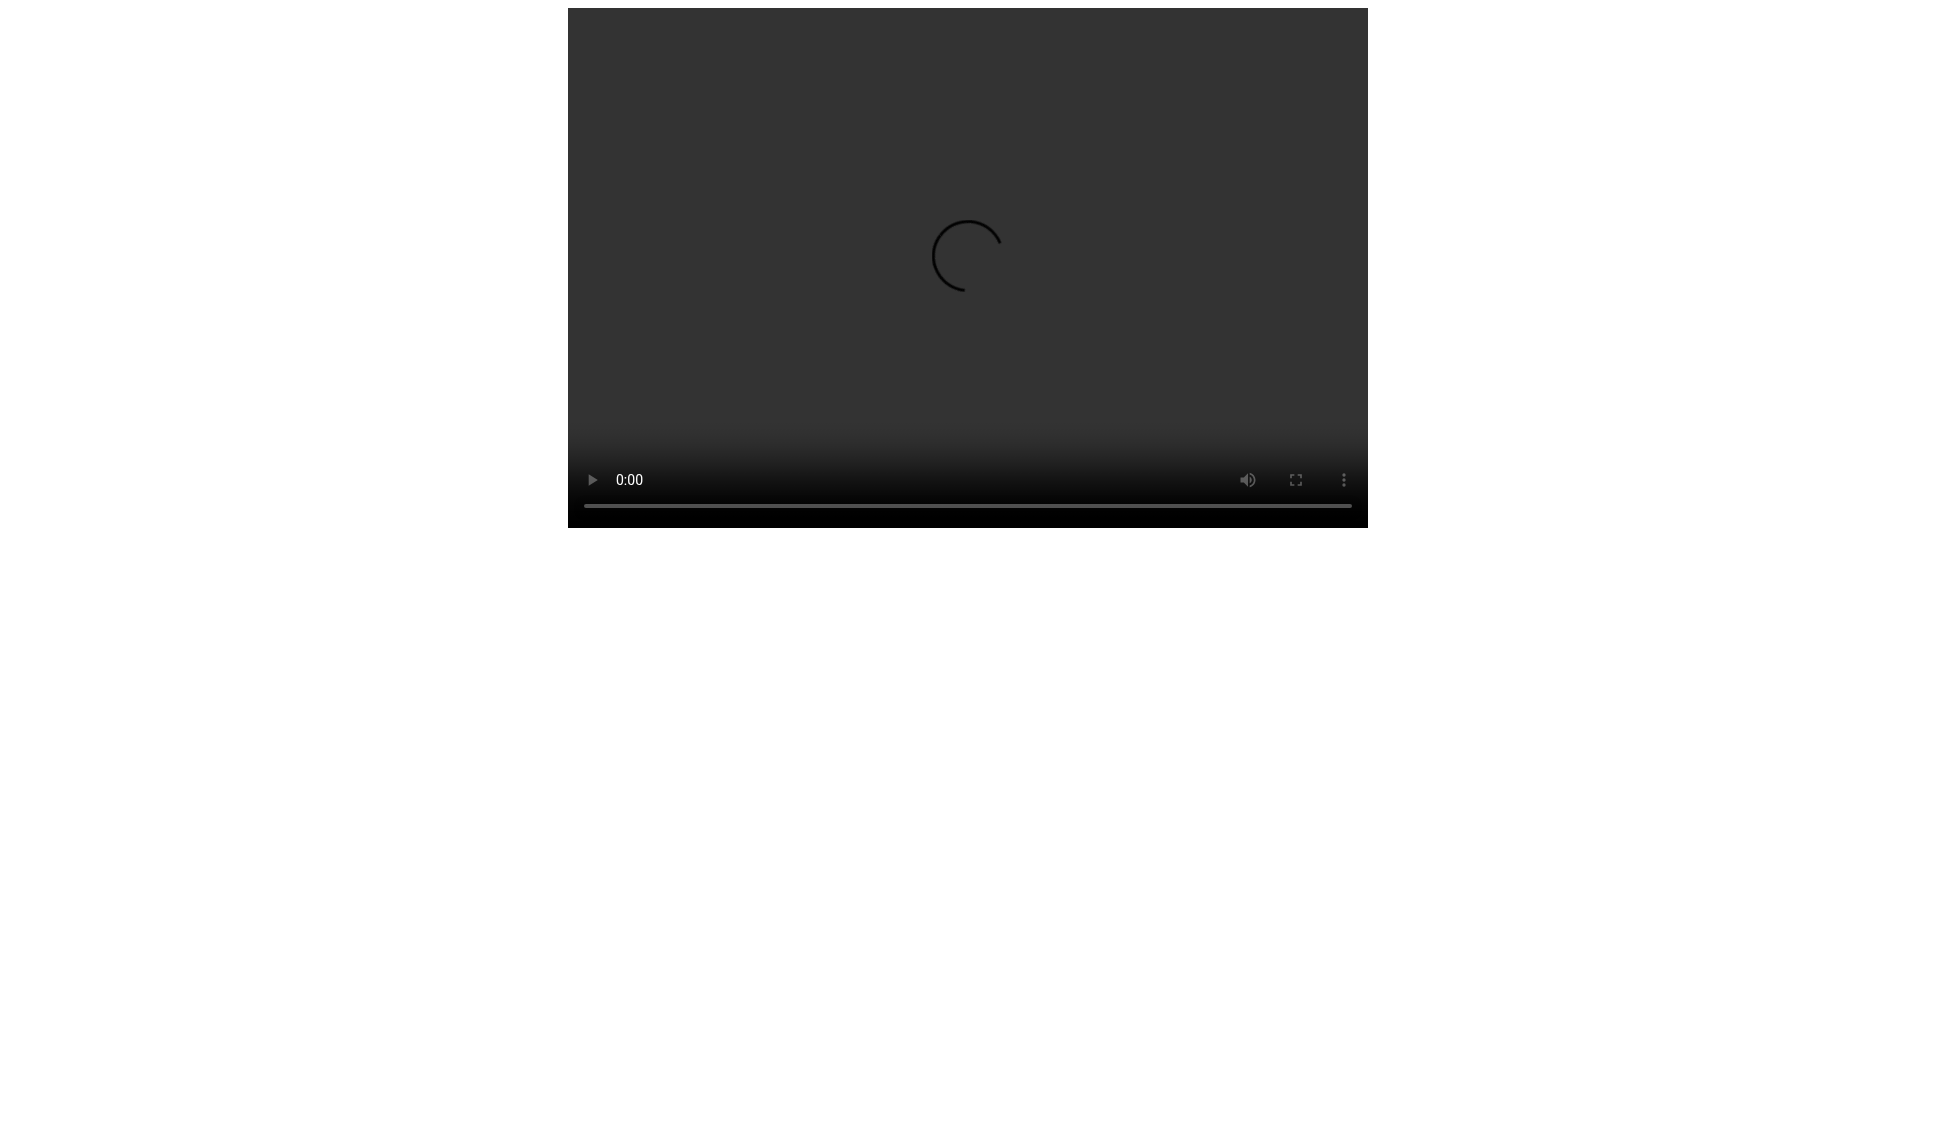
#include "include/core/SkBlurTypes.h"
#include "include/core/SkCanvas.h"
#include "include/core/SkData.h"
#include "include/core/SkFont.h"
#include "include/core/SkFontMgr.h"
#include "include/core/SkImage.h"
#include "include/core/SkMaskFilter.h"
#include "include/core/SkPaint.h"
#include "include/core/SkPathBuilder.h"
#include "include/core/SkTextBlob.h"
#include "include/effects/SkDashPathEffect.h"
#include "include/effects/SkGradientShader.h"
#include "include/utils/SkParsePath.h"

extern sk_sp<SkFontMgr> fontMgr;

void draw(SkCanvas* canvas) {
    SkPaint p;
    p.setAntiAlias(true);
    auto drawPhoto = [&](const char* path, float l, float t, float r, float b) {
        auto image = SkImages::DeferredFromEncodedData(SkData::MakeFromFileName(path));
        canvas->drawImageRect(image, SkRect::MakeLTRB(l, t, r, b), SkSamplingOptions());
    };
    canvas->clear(0xFFFFFFFF);
    drawPhoto("media/1.png", 568, 8, 1368, 528);
}
